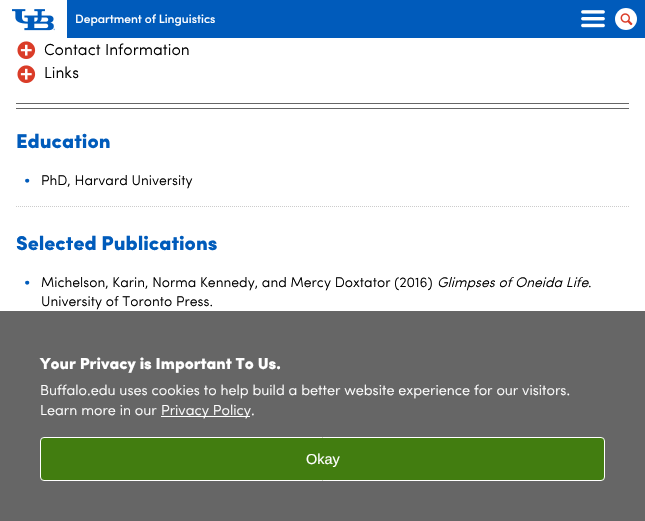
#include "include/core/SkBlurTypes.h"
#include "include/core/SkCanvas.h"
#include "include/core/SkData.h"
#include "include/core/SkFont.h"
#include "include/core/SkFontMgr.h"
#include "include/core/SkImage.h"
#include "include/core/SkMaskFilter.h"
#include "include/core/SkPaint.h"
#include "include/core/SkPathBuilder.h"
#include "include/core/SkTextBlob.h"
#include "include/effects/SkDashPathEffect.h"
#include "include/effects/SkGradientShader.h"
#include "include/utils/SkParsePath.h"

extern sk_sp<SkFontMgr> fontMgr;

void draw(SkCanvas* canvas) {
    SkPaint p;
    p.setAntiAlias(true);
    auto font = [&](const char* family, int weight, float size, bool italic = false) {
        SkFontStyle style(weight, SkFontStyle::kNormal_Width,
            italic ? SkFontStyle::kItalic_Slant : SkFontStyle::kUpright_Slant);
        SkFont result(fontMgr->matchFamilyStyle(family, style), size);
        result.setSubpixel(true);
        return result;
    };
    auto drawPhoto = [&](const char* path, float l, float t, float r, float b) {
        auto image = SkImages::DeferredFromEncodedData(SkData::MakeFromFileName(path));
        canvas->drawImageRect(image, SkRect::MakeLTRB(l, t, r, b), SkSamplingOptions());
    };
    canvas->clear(0xFFFFFFFF);
    p.setColor(0xFF005BBB);
    canvas->drawRect(SkRect::MakeLTRB(67, 0, 645, 38), p);
    drawPhoto("media/1.png", 12, 9, 55, 31);
    auto font1 = font("Sofia", 500, 12);
    p.setColor(0xFFFFFFFF);
    canvas->drawString("Department of Linguistics", 75, 23, font1, p);
    drawPhoto("media/2.png", 581, 10, 605, 28);
    canvas->drawCircle(626, 19, 11, p);
    drawPhoto("media/3.png", 620, 13, 633, 26);
    p.setColor(0xFF666666);
    canvas->drawRect(SkRect::MakeLTRB(16, 108, 629, 109), p);
    drawPhoto("media/4.png", 17, 41, 36, 59);
    auto font2 = font("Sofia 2", 400, 16);
    p.setColor(0xFF000000);
    canvas->drawString("Contact Information", 44, 55, font2, p);
    drawPhoto("media/4.png", 17, 65, 36, 83);
    canvas->drawString("Links", 44, 78, font2, p);
    p.setColor(0xFF666666);
    canvas->drawRect(SkRect::MakeLTRB(16, 103, 629, 104), p);
    auto font3 = font("Sofia", 400, 20);
    p.setColor(0xFF005BBB);
    canvas->drawString("Education", 16, 148, font3, p);
    auto font4 = font("Sofia 2", 400, 14);
    canvas->drawString("•", 24, 184, font4, p);
    p.setColor(0xFF000000);
    canvas->drawString("PhD, Harvard University", 41, 185, font4, p);
    p.setStyle(SkPaint::kStroke_Style);
    p.setStrokeWidth(1);
    p.setColor(0xFFCCCCCC);
    p.setPathEffect(SkDashPathEffect::Make({{1, 1}}, 0));
    canvas->drawPath(SkPathBuilder().moveTo(16, 206.5f).lineTo(629, 206.5f).detach(), p);
    p.setPathEffect(nullptr);
    p.setStyle(SkPaint::kFill_Style);
    p.setColor(0xFF005BBB);
    canvas->drawString("Selected Publications", 16, 250, font3, p);
    canvas->drawString("•", 24, 286, font4, p);
    p.setColor(0xFF000000);
    canvas->drawString("Michelson, Karin, Norma Kennedy, and Mercy Doxtator (2016)", 41, 287, font4, p);
    auto font5 = font("Sofia", 400, 14, true);
    canvas->drawString("Glimpses of Oneida Life", 437, 287, font5, p);
    canvas->drawString(".", 588, 287, font4, p);
    canvas->drawString("University of Toronto Press.", 41, 306, font4, p);
    p.setColor(0xFF666666);
    canvas->drawRect(SkRect::MakeLTRB(0, 311, 645, 521), p);
    auto font6 = font("Sofia", 400, 16);
    p.setColor(0xFFFFFFFF);
    canvas->drawString("Your Privacy is Important To Us.", 40, 369, font6, p);
    auto font7 = font("Sofia 2", 400, 14.4f);
    canvas->drawString("Buffalo.edu uses cookies to help build a better website experience for our visitors.", 40, 395, font7, p);
    canvas->drawString("Learn more in our", 40, 415, font7, p);
    canvas->drawRect(SkRect::MakeLTRB(161, 416, 250, 417), p);
    canvas->drawString("Privacy Policy.", 161, 415, font7, p);
    p.setColor(0xFF427D10);
    canvas->drawRoundRect(SkRect::MakeLTRB(40.5f, 437.5f, 604.5f, 480.5f), 3.5f, 3.5f, p);
    p.setStyle(SkPaint::kStroke_Style);
    p.setColor(0xFFFFFFFF);
    canvas->drawRoundRect(SkRect::MakeLTRB(40.5f, 437.5f, 604.5f, 480.5f), 3.5f, 3.5f, p);
    auto font8 = font("Liberation Sans", 400, 14.4f);
    p.setStyle(SkPaint::kFill_Style);
    canvas->drawString("Okay", 306, 464, font8, p);
}
